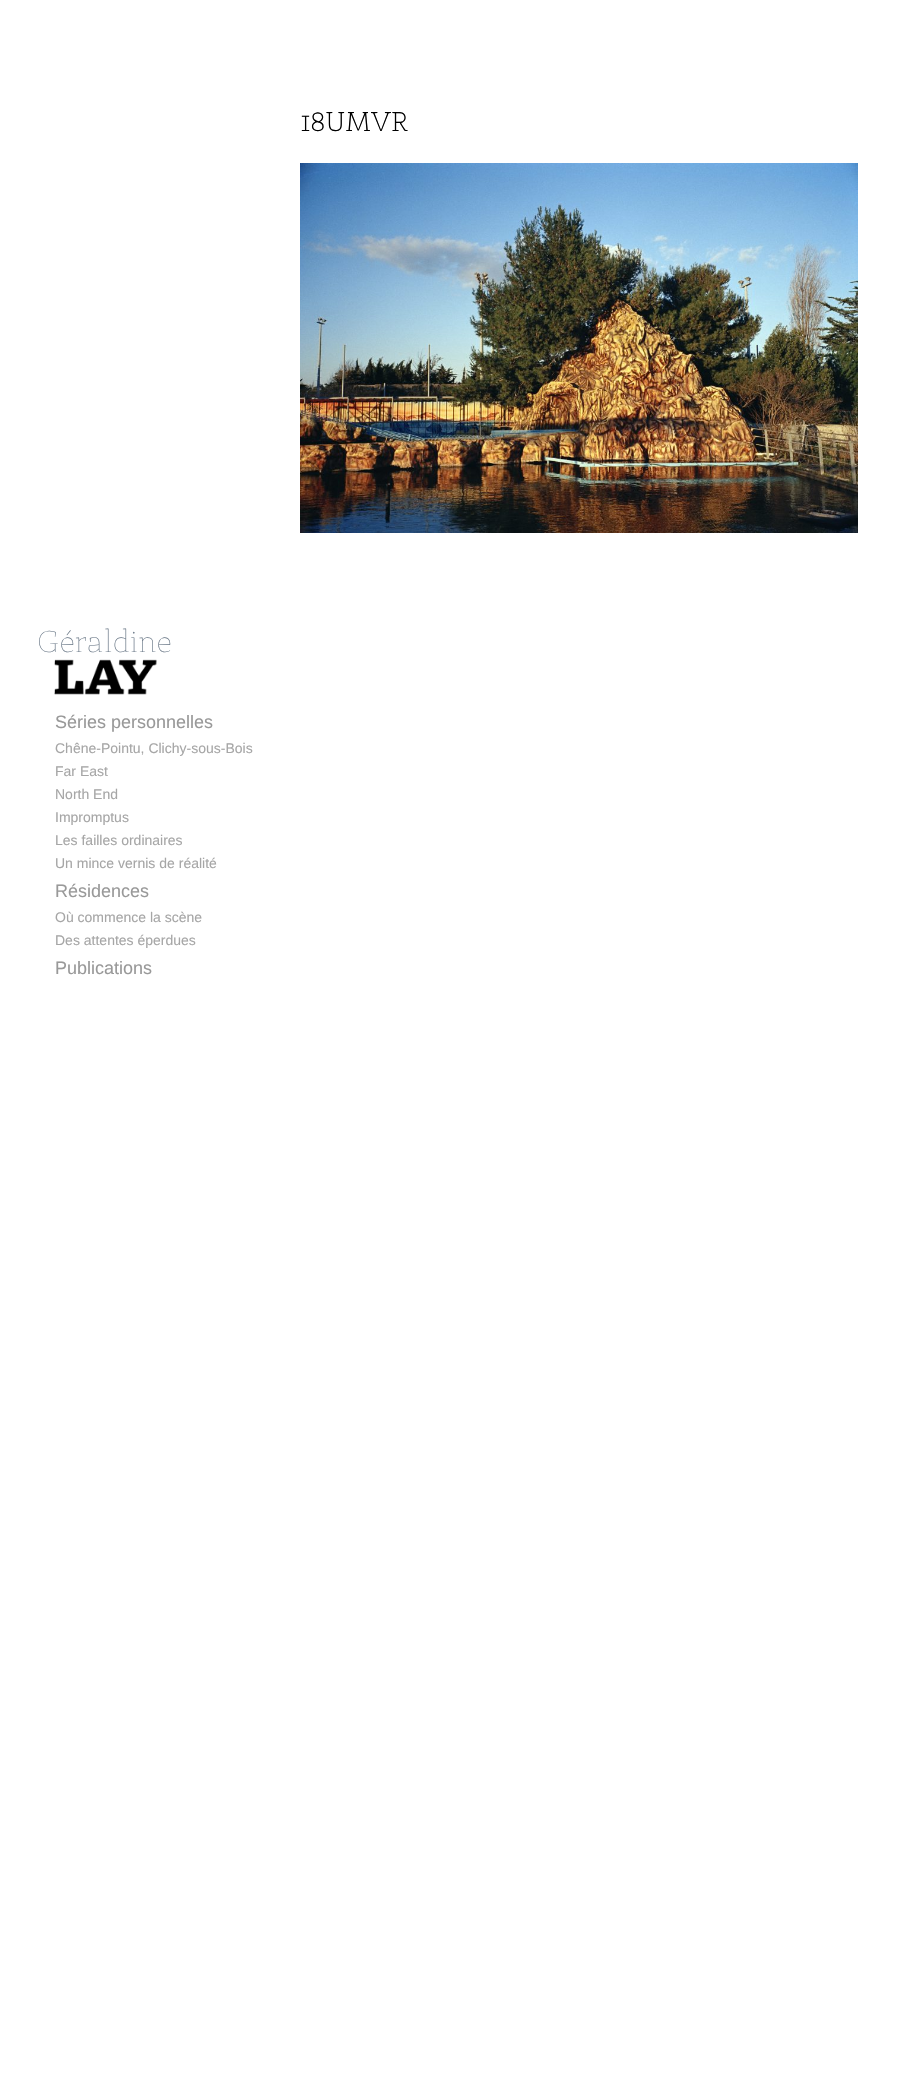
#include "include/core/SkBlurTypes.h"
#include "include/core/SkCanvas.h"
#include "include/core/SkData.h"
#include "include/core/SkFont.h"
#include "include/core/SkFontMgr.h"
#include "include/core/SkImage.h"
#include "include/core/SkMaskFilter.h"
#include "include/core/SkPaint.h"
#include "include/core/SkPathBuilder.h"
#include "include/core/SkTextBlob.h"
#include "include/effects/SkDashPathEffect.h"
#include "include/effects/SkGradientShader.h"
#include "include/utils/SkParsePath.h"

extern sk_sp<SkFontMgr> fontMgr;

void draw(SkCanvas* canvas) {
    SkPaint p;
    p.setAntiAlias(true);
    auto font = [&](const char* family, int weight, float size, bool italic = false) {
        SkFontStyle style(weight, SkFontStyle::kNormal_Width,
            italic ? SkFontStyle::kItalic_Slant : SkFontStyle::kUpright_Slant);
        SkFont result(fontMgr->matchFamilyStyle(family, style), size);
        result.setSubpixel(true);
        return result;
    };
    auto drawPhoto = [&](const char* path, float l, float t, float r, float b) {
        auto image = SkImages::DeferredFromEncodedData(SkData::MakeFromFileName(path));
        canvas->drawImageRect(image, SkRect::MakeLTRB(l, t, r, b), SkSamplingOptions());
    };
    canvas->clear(0xFFFFFFFF);
    auto font1 = font("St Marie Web", 700, 26);
    p.setColor(0xFF000000);
    canvas->drawString("18UMVR", 300, 131, font1, p);
    drawPhoto("media/1.png", 300, 163, 858, 533);
    auto font2 = font("St Marie Web", 100, 30);
    p.setColor(0xFF6B7988);
    canvas->drawString("Géraldine", 37, 652, font2, p);
    drawPhoto("media/2.png", 54, 659, 157, 695);
    auto font3 = font("Liberation Sans", 400, 18);
    p.setColor(0xFF999999);
    canvas->drawString("Séries personnelles", 55, 728, font3, p);
    auto font4 = font("Liberation Sans", 400, 14);
    p.setColor(0xFFA6A6A6);
    {
        const struct { const char* s; float x, y; } items[] = {
            {"Chêne-Pointu, Clichy-sous-Bois", 55, 753},
            {"Far East", 55, 776},
            {"North End", 55, 799},
            {"Impromptus", 55, 822},
            {"Les failles ordinaires", 55, 845},
            {"Un mince vernis de réalité", 55, 868},
        };
        for (auto [s, x, y] : items) {
            canvas->drawString(s, x, y, font4, p);
        }
    }
    p.setColor(0xFF999999);
    canvas->drawString("Résidences", 55, 897, font3, p);
    p.setColor(0xFFA6A6A6);
    canvas->drawString("Où commence la scène", 55, 922, font4, p);
    canvas->drawString("Des attentes éperdues", 55, 945, font4, p);
    p.setColor(0xFF999999);
    canvas->drawString("Publications", 55, 974, font3, p);
}
